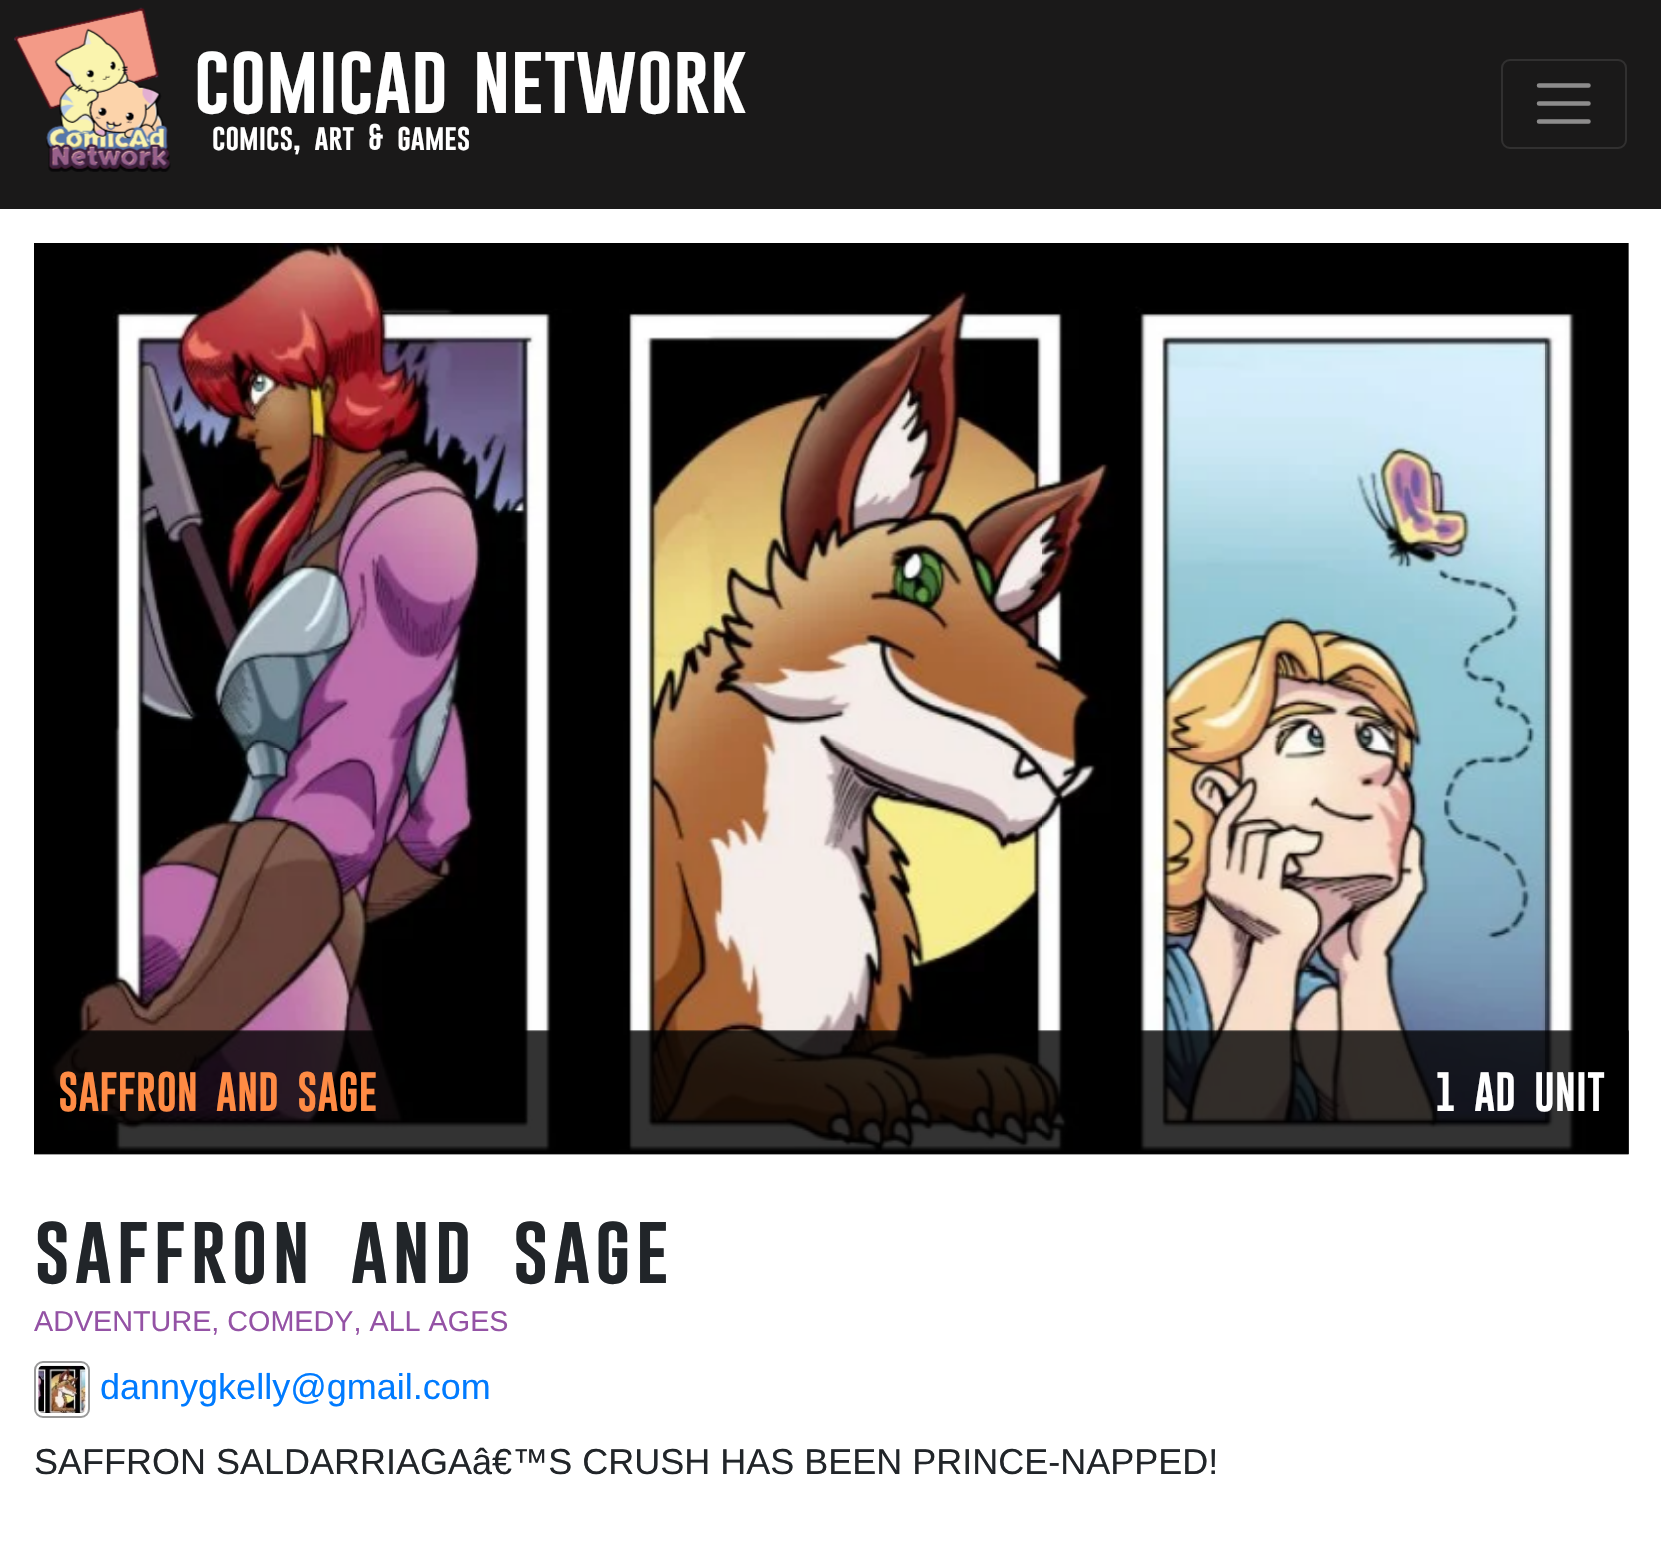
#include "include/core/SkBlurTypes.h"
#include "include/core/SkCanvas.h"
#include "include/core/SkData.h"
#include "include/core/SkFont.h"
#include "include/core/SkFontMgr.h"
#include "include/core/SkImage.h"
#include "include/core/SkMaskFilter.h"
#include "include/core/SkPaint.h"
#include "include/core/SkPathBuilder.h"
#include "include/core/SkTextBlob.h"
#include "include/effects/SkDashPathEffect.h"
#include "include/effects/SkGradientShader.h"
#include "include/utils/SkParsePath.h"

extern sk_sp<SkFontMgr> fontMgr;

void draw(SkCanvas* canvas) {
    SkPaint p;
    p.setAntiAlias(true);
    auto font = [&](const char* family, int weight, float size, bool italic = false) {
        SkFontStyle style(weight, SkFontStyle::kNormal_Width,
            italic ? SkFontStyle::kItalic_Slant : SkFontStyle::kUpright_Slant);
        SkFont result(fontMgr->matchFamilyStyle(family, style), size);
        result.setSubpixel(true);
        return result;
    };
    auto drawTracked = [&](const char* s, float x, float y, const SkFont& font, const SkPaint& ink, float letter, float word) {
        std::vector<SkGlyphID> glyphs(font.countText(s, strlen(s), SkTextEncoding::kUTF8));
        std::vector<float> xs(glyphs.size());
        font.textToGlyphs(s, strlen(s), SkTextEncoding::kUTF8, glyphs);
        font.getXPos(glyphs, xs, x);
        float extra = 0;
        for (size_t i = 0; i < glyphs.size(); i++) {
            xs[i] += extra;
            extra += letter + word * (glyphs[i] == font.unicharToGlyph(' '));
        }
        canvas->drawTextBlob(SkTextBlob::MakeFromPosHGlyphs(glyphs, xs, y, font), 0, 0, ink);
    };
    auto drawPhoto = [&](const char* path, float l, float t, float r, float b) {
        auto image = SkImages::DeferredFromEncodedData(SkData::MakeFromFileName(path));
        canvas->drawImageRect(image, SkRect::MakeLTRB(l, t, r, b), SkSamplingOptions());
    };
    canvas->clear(0xFFFFFFFF);
    p.setColor(0xFF1A1919);
    canvas->drawRect(SkRect::MakeLTRB(0, 0, 1661, 209), p);
    drawPhoto("media/1.png", 14, 7, 171, 172);
    auto font1 = font("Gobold", 700, 72);
    p.setColor(0xFFFFFFFF);
    drawTracked("comicad network", 194, 113, font1, p, 0, 7);
    auto font2 = font("Gobold", 700, 27);
    drawTracked("comics, art & games", 212, 150, font2, p, 0, 7);
    p.setStyle(SkPaint::kStroke_Style);
    p.setStrokeWidth(2);
    p.setColor(0xFF313030);
    canvas->drawRoundRect(SkRect::MakeLTRB(1502, 60, 1626, 148), 8, 8, p);
    p.setStrokeWidth(4.5f);
    p.setStrokeCap(SkPaint::kRound_Cap);
    p.setColor(0xFF8D8C8C);
    canvas->drawPath(SkPathBuilder().moveTo(1539, 85.5f).lineTo(1588.5f, 85.5f).moveTo(1539, 103.5f).lineTo(1588.5f, 103.5f).moveTo(1539, 121.5f).lineTo(1588.5f, 121.5f).detach(), p);
    drawPhoto("media/2.png", 34, 243, 1629, 1155);
    drawPhoto("media/3.png", 34, 1030, 1629, 1154);
    auto font3 = font("Gobold", 700, 40.5f);
    p.setStyle(SkPaint::kFill_Style);
    p.setColor(0xFFFF8B44);
    drawTracked("SAFFRON AND SAGE", 58, 1111, font3, p, 0, 8);
    p.setColor(0xFFFFFFFF);
    drawTracked("1 AD UNIT", 1435, 1111, font3, p, 0, 8);
    p.setColor(0xFF212529);
    drawTracked("saffron and sage", 34, 1283, font1, p, 4.5f, 14);
    auto font4 = font("Liberation Sans", 400, 28.75f);
    p.setColor(0xFF9452A5);
    canvas->drawString("ADVENTURE, COMEDY, ALL AGES", 34, 1331, font4, p);
    p.setStyle(SkPaint::kStroke_Style);
    p.setStrokeWidth(2);
    p.setStrokeCap(SkPaint::kButt_Cap);
    p.setColor(0xFF999999);
    canvas->drawRoundRect(SkRect::MakeLTRB(35, 1362, 89, 1417), 8, 8, p);
    drawPhoto("media/4.png", 38, 1365, 86, 1413);
    auto font5 = font("Liberation Sans", 400, 36);
    p.setStyle(SkPaint::kFill_Style);
    p.setColor(0xFF007BFF);
    canvas->drawString("dannygkelly@gmail.com", 100, 1399, font5, p);
    p.setColor(0xFF212529);
    canvas->drawString("SAFFRON SALDARRIAGAâ€™S CRUSH HAS BEEN PRINCE-NAPPED!", 34, 1474, font5, p);
}
